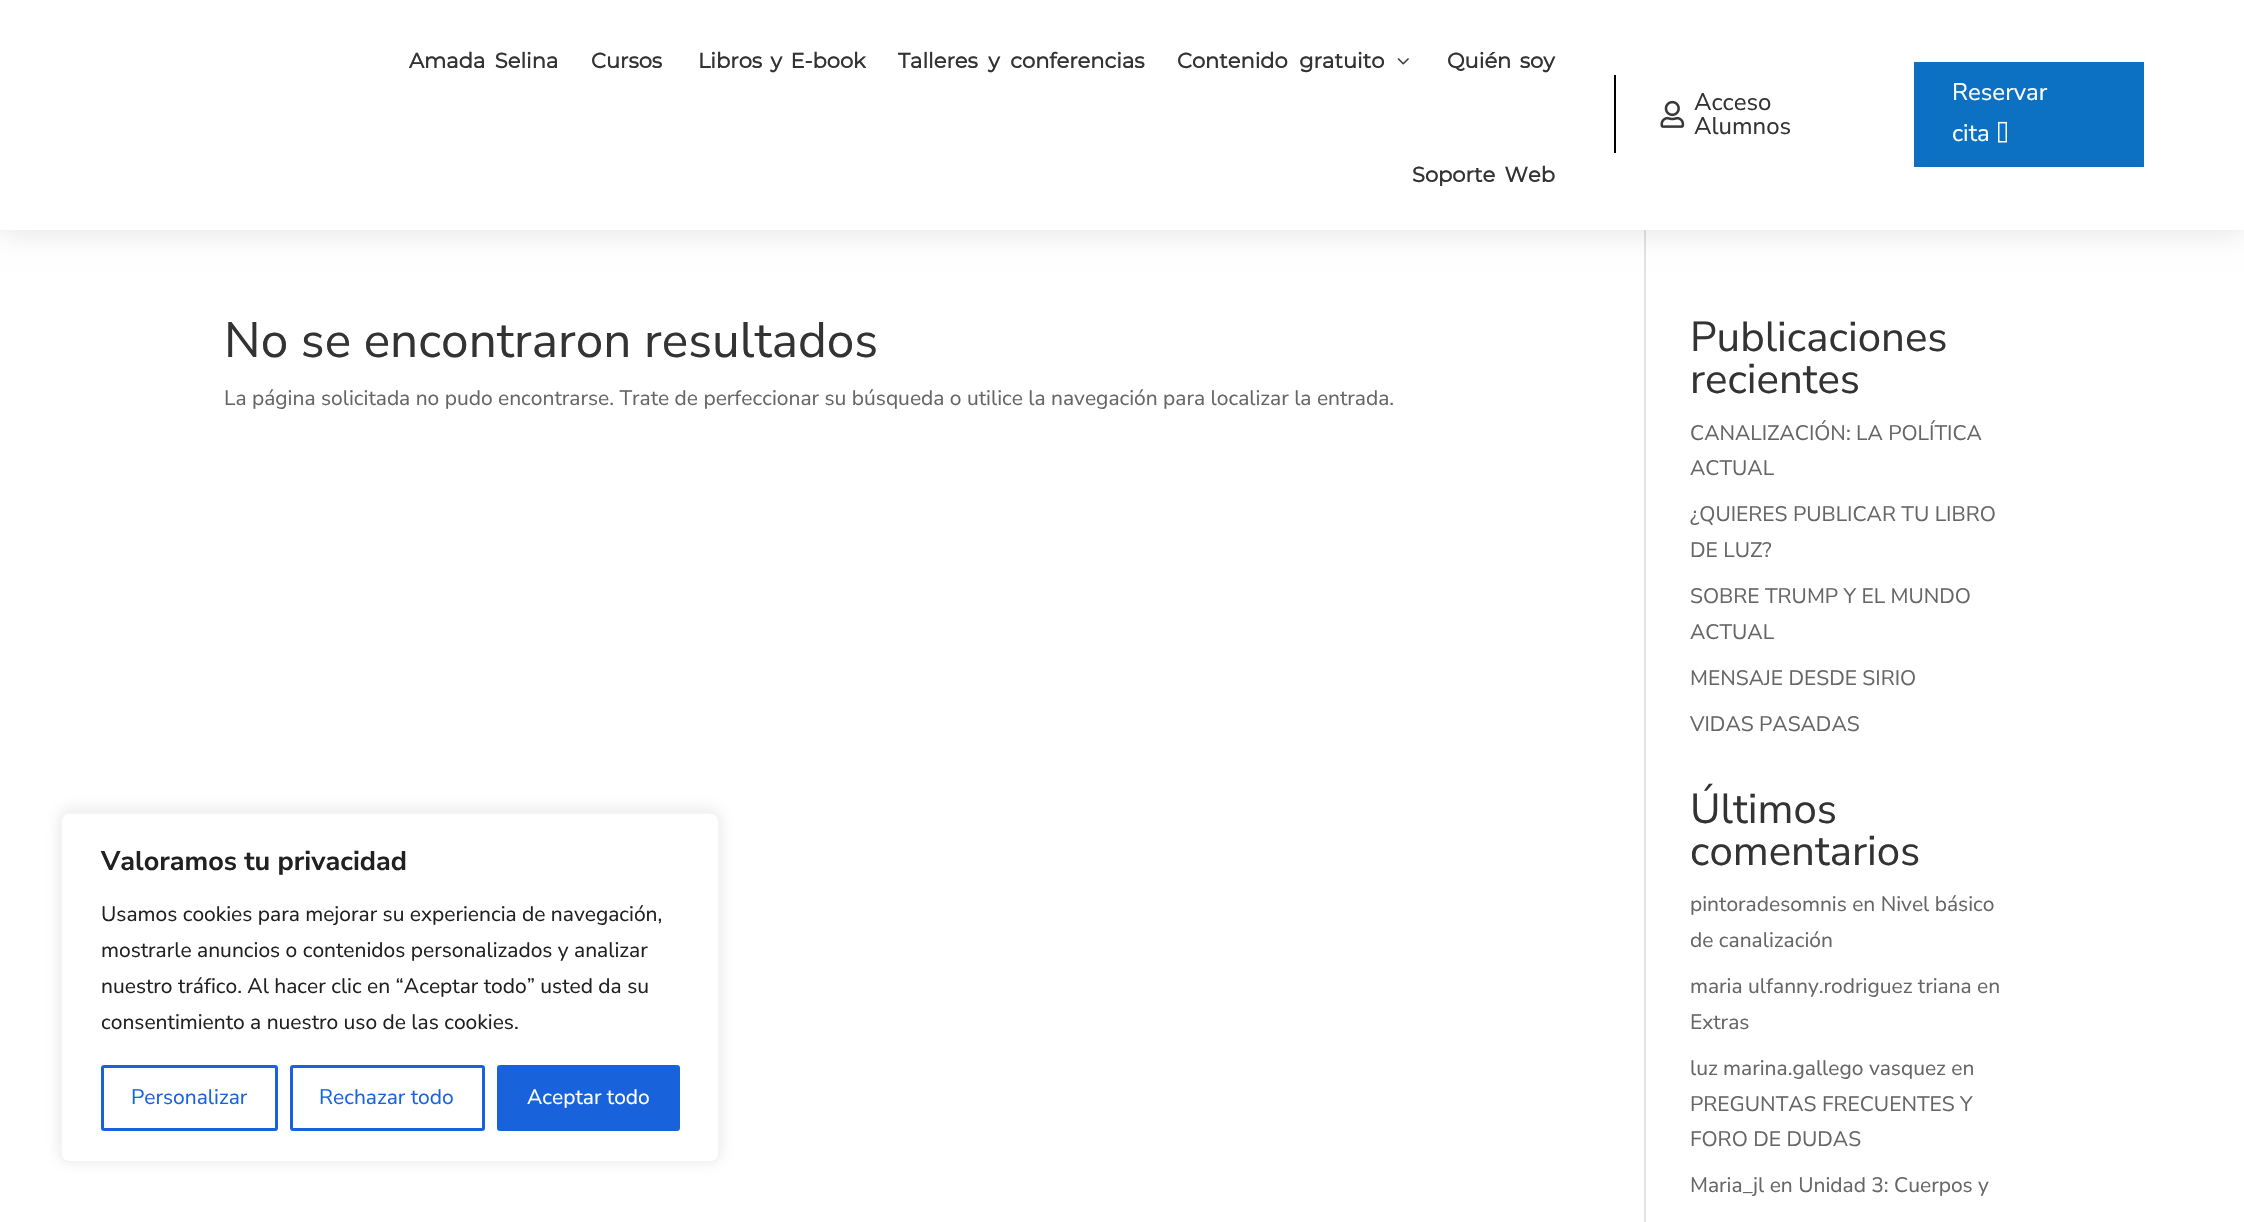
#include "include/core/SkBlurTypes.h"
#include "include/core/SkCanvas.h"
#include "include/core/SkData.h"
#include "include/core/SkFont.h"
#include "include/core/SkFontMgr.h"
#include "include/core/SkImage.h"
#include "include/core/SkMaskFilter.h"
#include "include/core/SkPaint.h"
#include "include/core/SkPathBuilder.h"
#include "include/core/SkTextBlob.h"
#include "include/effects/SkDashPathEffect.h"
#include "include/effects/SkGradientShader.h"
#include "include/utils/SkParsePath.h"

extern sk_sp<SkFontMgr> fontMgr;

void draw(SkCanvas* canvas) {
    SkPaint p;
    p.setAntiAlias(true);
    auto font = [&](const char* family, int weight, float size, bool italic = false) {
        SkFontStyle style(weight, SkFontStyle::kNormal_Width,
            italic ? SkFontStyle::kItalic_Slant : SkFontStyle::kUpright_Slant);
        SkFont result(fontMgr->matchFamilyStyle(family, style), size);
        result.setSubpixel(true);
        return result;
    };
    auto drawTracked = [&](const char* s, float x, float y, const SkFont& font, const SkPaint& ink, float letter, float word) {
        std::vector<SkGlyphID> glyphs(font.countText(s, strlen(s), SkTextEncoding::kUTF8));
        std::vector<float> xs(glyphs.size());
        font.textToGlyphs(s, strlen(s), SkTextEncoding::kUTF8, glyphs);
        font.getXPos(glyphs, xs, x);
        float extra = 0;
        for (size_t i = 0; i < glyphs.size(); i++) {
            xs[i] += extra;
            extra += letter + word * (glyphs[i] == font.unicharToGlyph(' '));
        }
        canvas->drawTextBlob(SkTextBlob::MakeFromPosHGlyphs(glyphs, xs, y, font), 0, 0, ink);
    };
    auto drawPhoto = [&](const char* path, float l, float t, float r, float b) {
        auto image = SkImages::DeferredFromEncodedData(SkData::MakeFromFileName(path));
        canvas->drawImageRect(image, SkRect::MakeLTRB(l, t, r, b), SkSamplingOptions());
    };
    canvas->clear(0xFFFFFFFF);
    p.setColor(0xFFE2E2E2);
    canvas->drawRect(SkRect::MakeLTRB(1644, 230, 1646, 1222), p);
    p.setColor(0x1A000000);
    p.setMaskFilter(SkMaskFilter::MakeBlur(kNormal_SkBlurStyle, 13.5f));
    canvas->drawRect(SkRect::MakeLTRB(0, 3, 2244, 233), p);
    p.setMaskFilter(nullptr);
    p.setColor(0xFFFFFFFF);
    canvas->drawRect(SkRect::MakeLTRB(0, 0, 2244, 230), p);
    auto font1 = font("Montserrat", 700, 21);
    p.setColor(0xFF333333);
    drawTracked("Amada Selina", 409, 68, font1, p, 0, 4);
    canvas->drawString("Cursos", 591, 68, font1, p);
    drawTracked("Libros y E-book", 698, 68, font1, p, 0, 3);
    drawTracked("Talleres y conferencias", 898, 68, font1, p, 0, 5);
    drawTracked("Contenido gratuito", 1177, 68, font1, p, 0, 6);
    drawPhoto("media/1.png", 1397, 58, 1409, 65);
    drawTracked("Quién soy", 1447, 68, font1, p, 0, 3);
    drawTracked("Soporte Web", 1412, 182, font1, p, 0, 4);
    p.setColor(0xFF000000);
    canvas->drawRect(SkRect::MakeLTRB(1614, 75, 1616, 153), p);
    drawPhoto("media/2.png", 1660, 100, 1685, 128);
    auto font2 = font("Nunito Sans", 200, 24);
    p.setColor(0xFF333333);
    canvas->drawString("Acceso", 1694, 110, font2, p);
    canvas->drawString("Alumnos", 1694, 134, font2, p);
    p.setColor(0xFF0C71C3);
    canvas->drawRect(SkRect::MakeLTRB(1914, 62, 2144, 167), p);
    p.setColor(0xFFFFFFFF);
    canvas->drawString("Reservar", 1952, 100, font2, p);
    canvas->drawString("cita", 1952, 141, font2, p);
    drawPhoto("media/3.png", 1998, 121, 2007, 143);
    auto font3 = font("Nunito Sans", 200, 49.5f);
    p.setColor(0xFF333333);
    canvas->drawString("No se encontraron resultados", 224, 357, font3, p);
    auto font4 = font("Nunito Sans", 200, 21);
    p.setColor(0xFF666666);
    canvas->drawString("La página solicitada no pudo encontrarse. Trate de perfeccionar su búsqueda o utilice la navegación para localizar la entrada.", 224, 405, font4, p);
    auto font5 = font("Nunito Sans", 200, 42);
    p.setColor(0xFF333333);
    canvas->drawString("Publicaciones", 1690, 351, font5, p);
    canvas->drawString("recientes", 1690, 393, font5, p);
    p.setColor(0xFF666666);
    {
        const struct { const char* s; float x, y; } items[] = {
            {"CANALIZACIÓN: LA POLÍTICA", 1690, 440},
            {"ACTUAL", 1690, 475},
            {"¿QUIERES PUBLICAR TU LIBRO", 1690, 521},
            {"DE LUZ?", 1690, 557},
            {"SOBRE TRUMP Y EL MUNDO", 1690, 603},
            {"ACTUAL", 1690, 639},
            {"MENSAJE DESDE SIRIO", 1690, 685},
            {"VIDAS PASADAS", 1690, 731},
        };
        for (auto [s, x, y] : items) {
            canvas->drawString(s, x, y, font4, p);
        }
    }
    p.setColor(0xFF333333);
    canvas->drawString("Últimos", 1690, 823, font5, p);
    canvas->drawString("comentarios", 1690, 865, font5, p);
    p.setColor(0xFF666666);
    {
        const struct { const char* s; float x, y; } items[] = {
            {"pintoradesomnis en Nivel básico", 1690, 911},
            {"de canalización", 1690, 947},
            {"maria ulfanny.rodriguez triana en", 1690, 993},
            {"Extras", 1690, 1029},
            {"luz marina.gallego vasquez en", 1690, 1075},
            {"PREGUNTAS FRECUENTES Y", 1690, 1111},
            {"FORO DE DUDAS", 1690, 1146},
            {"Maria_jl en Unidad 3: Cuerpos y", 1690, 1192},
        };
        for (auto [s, x, y] : items) {
            canvas->drawString(s, x, y, font4, p);
        }
    }
    p.setColor(0x4DACABAB);
    p.setMaskFilter(SkMaskFilter::MakeBlur(kNormal_SkBlurStyle, 7.5f));
    canvas->drawRoundRect(SkRect::MakeLTRB(60, 810, 720, 1161), 9, 9, p);
    p.setMaskFilter(nullptr);
    p.setColor(0xFFFFFFFF);
    canvas->drawRoundRect(SkRect::MakeLTRB(61, 813, 719, 1162), 8, 8, p);
    p.setStyle(SkPaint::kStroke_Style);
    p.setStrokeWidth(2);
    p.setColor(0xFFF4F4F4);
    canvas->drawRoundRect(SkRect::MakeLTRB(61, 813, 719, 1162), 8, 8, p);
    auto font6 = font("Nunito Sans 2", 200, 27);
    p.setStyle(SkPaint::kFill_Style);
    p.setColor(0xFF212121);
    canvas->drawString("Valoramos tu privacidad", 101, 870, font6, p);
    {
        const struct { const char* s; float x, y; } items[] = {
            {"Usamos cookies para mejorar su experiencia de navegación,", 101, 921},
            {"mostrarle anuncios o contenidos personalizados y analizar", 101, 957},
            {"nuestro tráfico. Al hacer clic en “Aceptar todo” usted da su", 101, 993},
            {"consentimiento a nuestro uso de las cookies.", 101, 1029},
        };
        for (auto [s, x, y] : items) {
            canvas->drawString(s, x, y, font4, p);
        }
    }
    p.setStyle(SkPaint::kStroke_Style);
    p.setStrokeWidth(3);
    p.setColor(0xFF1863DC);
    canvas->drawRoundRect(SkRect::MakeLTRB(102.5f, 1066.5f, 276.5f, 1129.5f), 1.5f, 1.5f, p);
    p.setStyle(SkPaint::kFill_Style);
    canvas->drawString("Personalizar", 131, 1104, font4, p);
    p.setStyle(SkPaint::kStroke_Style);
    canvas->drawRoundRect(SkRect::MakeLTRB(291.5f, 1066.5f, 483.5f, 1129.5f), 1.5f, 1.5f, p);
    p.setStyle(SkPaint::kFill_Style);
    canvas->drawString("Rechazar todo", 319, 1104, font4, p);
    canvas->drawRoundRect(SkRect::MakeLTRB(498.5f, 1066.5f, 678.5f, 1129.5f), 1.5f, 1.5f, p);
    p.setStyle(SkPaint::kStroke_Style);
    canvas->drawRoundRect(SkRect::MakeLTRB(498.5f, 1066.5f, 678.5f, 1129.5f), 1.5f, 1.5f, p);
    p.setStyle(SkPaint::kFill_Style);
    p.setColor(0xFFFFFFFF);
    canvas->drawString("Aceptar todo", 527, 1104, font4, p);
}
